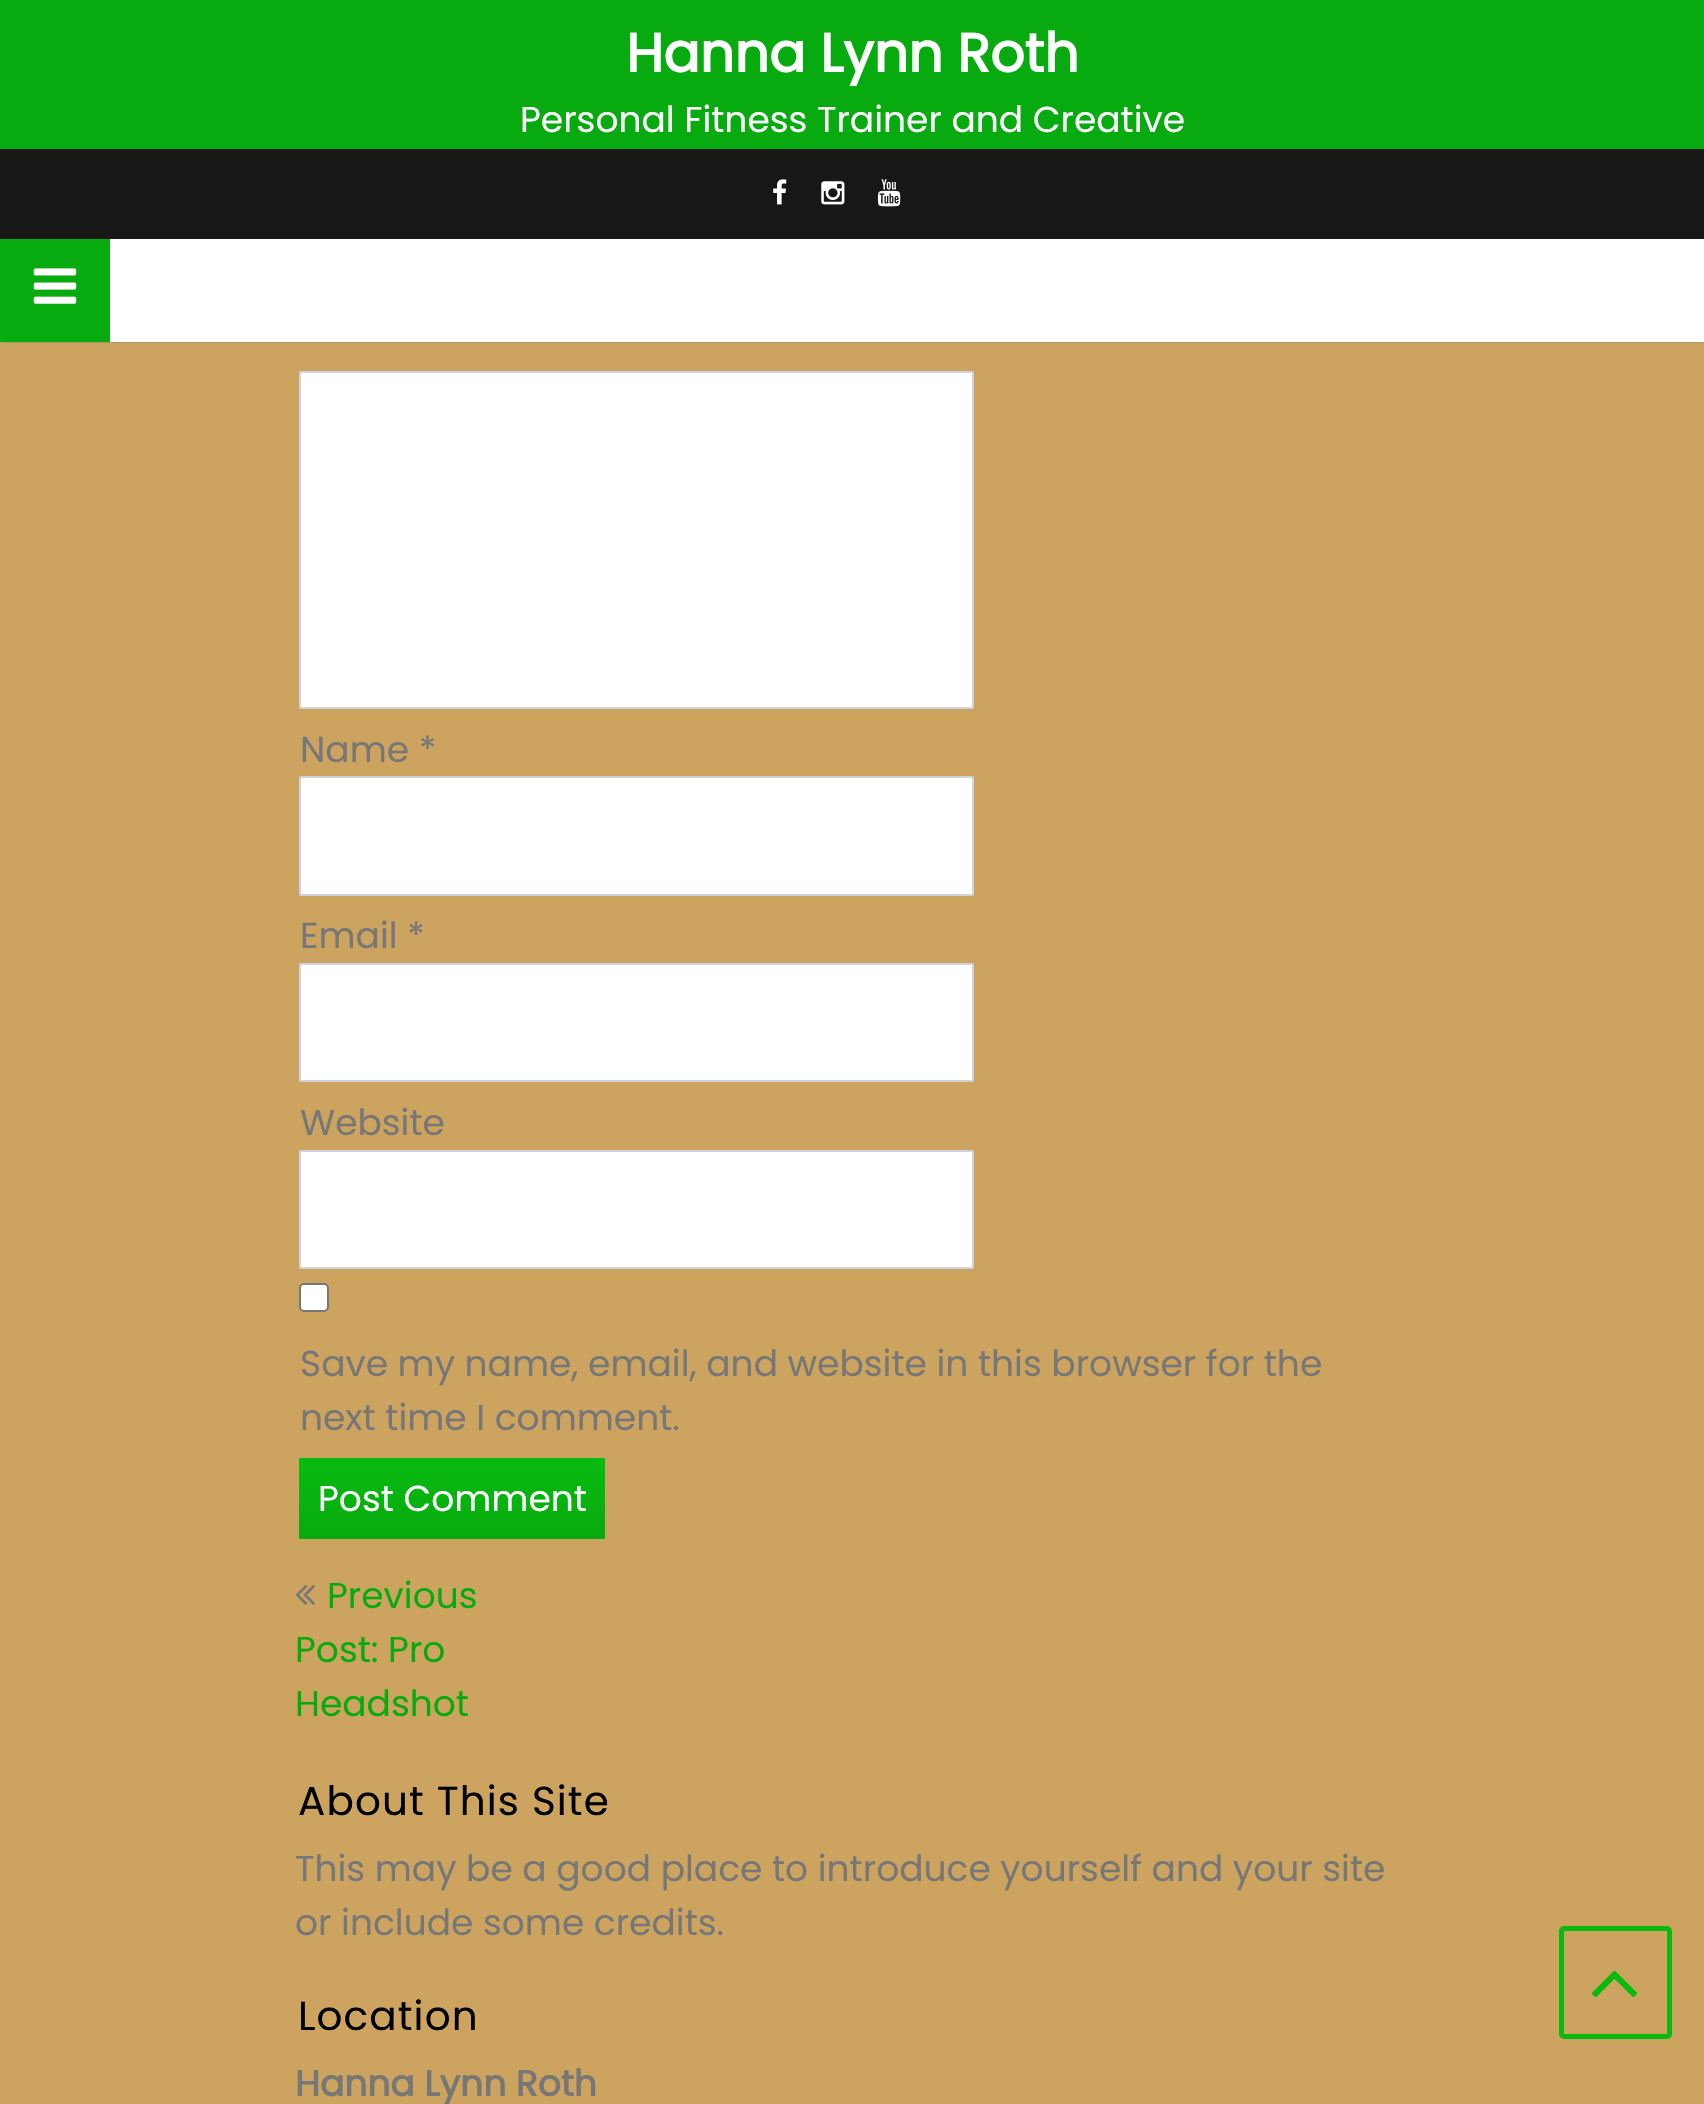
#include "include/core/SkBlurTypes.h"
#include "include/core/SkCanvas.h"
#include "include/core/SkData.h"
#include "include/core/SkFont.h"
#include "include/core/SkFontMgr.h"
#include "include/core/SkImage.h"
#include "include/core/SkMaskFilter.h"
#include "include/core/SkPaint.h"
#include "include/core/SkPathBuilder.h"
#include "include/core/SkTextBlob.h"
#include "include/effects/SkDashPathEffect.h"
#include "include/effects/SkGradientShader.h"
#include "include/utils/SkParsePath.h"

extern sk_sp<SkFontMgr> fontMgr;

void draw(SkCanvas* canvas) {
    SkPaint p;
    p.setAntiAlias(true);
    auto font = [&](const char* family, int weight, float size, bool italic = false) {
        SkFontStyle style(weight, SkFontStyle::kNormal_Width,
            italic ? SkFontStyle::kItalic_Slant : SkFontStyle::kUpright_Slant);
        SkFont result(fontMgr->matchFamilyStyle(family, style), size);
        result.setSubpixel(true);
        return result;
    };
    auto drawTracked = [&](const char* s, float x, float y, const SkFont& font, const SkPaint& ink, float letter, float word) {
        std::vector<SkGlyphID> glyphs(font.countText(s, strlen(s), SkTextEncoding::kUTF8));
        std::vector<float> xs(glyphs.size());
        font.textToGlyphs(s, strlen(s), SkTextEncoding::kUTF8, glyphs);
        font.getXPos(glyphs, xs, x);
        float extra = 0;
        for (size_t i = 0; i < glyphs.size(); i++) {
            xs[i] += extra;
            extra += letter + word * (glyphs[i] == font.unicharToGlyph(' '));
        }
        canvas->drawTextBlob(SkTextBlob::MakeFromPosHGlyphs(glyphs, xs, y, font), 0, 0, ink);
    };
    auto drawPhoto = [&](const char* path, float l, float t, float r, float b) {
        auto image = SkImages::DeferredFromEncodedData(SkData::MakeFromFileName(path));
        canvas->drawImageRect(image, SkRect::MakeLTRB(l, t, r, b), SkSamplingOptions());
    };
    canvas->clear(0xFFCCA45F);
    p.setColor(0xFF777777);
    p.setMaskFilter(SkMaskFilter::MakeBlur(kNormal_SkBlurStyle, 1));
    canvas->drawRect(SkRect::MakeLTRB(2, 5, 1703, 342), p);
    p.setMaskFilter(nullptr);
    p.setColor(0xFFFFFFFF);
    canvas->drawRect(SkRect::MakeLTRB(110, 239, 1704, 342), p);
    p.setColor(0xFF08AB0F);
    canvas->drawRect(SkRect::MakeLTRB(0, 0, 1704, 149), p);
    auto font1 = font("Poppins", 700, 54);
    p.setColor(0xFFFFFFFF);
    canvas->drawString("Hanna Lynn Roth", 626, 72, font1, p);
    auto font2 = font("Poppins", 400, 36);
    canvas->drawString("Personal Fitness Trainer and Creative", 520, 132, font2, p);
    p.setColor(0xFF171717);
    canvas->drawRect(SkRect::MakeLTRB(0, 149, 1704, 239), p);
    drawPhoto("media/1.png", 773, 179, 787, 205);
    drawPhoto("media/2.png", 821, 181, 845, 205);
    drawPhoto("media/3.png", 877, 179, 901, 207);
    p.setColor(0xFF08AB0F);
    canvas->drawRect(SkRect::MakeLTRB(0, 239, 110, 342), p);
    drawPhoto("media/4.png", 33, 268, 77, 304);
    p.setColor(0xFFFFFFFF);
    canvas->drawRoundRect(SkRect::MakeLTRB(300, 372, 973, 708), 1, 1, p);
    p.setStyle(SkPaint::kStroke_Style);
    p.setStrokeWidth(2);
    p.setColor(0xFFCED4DA);
    canvas->drawRoundRect(SkRect::MakeLTRB(300, 372, 973, 708), 1, 1, p);
    p.setStyle(SkPaint::kFill_Style);
    p.setColor(0xFF777777);
    canvas->drawString("Name *", 300, 762, font2, p);
    p.setColor(0xFFFFFFFF);
    canvas->drawRoundRect(SkRect::MakeLTRB(300, 777, 973, 895), 1, 1, p);
    p.setStyle(SkPaint::kStroke_Style);
    p.setColor(0xFFCED4DA);
    canvas->drawRoundRect(SkRect::MakeLTRB(300, 777, 973, 895), 1, 1, p);
    p.setStyle(SkPaint::kFill_Style);
    p.setColor(0xFF777777);
    canvas->drawString("Email *", 300, 948, font2, p);
    p.setColor(0xFFFFFFFF);
    canvas->drawRoundRect(SkRect::MakeLTRB(300, 964, 973, 1081), 1, 1, p);
    p.setStyle(SkPaint::kStroke_Style);
    p.setColor(0xFFCED4DA);
    canvas->drawRoundRect(SkRect::MakeLTRB(300, 964, 973, 1081), 1, 1, p);
    p.setStyle(SkPaint::kFill_Style);
    p.setColor(0xFF777777);
    canvas->drawString("Website", 300, 1135, font2, p);
    p.setColor(0xFFFFFFFF);
    canvas->drawRoundRect(SkRect::MakeLTRB(300, 1151, 973, 1268), 1, 1, p);
    p.setStyle(SkPaint::kStroke_Style);
    p.setColor(0xFFCED4DA);
    canvas->drawRoundRect(SkRect::MakeLTRB(300, 1151, 973, 1268), 1, 1, p);
    p.setStyle(SkPaint::kFill_Style);
    p.setColor(0xFFFFFFFF);
    canvas->drawRoundRect(SkRect::MakeLTRB(300, 1284, 328, 1311), 4, 4, p);
    p.setStyle(SkPaint::kStroke_Style);
    p.setColor(0xFF767676);
    canvas->drawRoundRect(SkRect::MakeLTRB(300, 1284, 328, 1311), 4, 4, p);
    p.setStyle(SkPaint::kFill_Style);
    p.setColor(0xFF777777);
    canvas->drawString("Save my name, email, and website in this browser for the", 300, 1376, font2, p);
    canvas->drawString("next time I comment.", 300, 1430, font2, p);
    {
        const SkColor colors[] = {0xFF08BA10, 0xFF08AB0F};
        const float stops[] = {0, 1};
        const SkPoint ends[] = {{452, 1458}, {452, 1539}};
        p.setShader(SkGradientShader::MakeLinear(ends, colors, stops, 2, SkTileMode::kClamp));
        p.setAlpha(255);
    }
    canvas->drawRect(SkRect::MakeLTRB(299, 1458, 605, 1539), p);
    p.setShader(nullptr);
    p.setColor(0xFFFFFFFF);
    canvas->drawString("Post Comment", 318, 1511, font2, p);
    drawPhoto("media/5.png", 295, 1585, 315, 1605);
    p.setColor(0xFF08AB0F);
    {
        const struct { const char* s; float x, y; } items[] = {
            {"Previous", 327, 1608},
            {"Post: Pro", 295, 1662},
            {"Headshot", 295, 1716},
        };
        for (auto [s, x, y] : items) {
            canvas->drawString(s, x, y, font2, p);
        }
    }
    auto font3 = font("Poppins", 400, 40.5f);
    p.setColor(0xFF000000);
    drawTracked("About This Site", 298, 1815, font3, p, 1.1f, 0);
    p.setColor(0xFF777777);
    canvas->drawString("This may be a good place to introduce yourself and your site", 295, 1881, font2, p);
    canvas->drawString("or include some credits.", 295, 1935, font2, p);
    p.setColor(0xFF000000);
    drawTracked("Location", 298, 2030, font3, p, 1.1f, 0);
    auto font4 = font("Poppins", 700, 36);
    p.setColor(0xFF777777);
    canvas->drawString("Hanna Lynn Roth", 295, 2096, font4, p);
    p.setStyle(SkPaint::kStroke_Style);
    p.setStrokeWidth(5);
    p.setColor(0xFF08BA10);
    canvas->drawRoundRect(SkRect::MakeLTRB(1561.5f, 1928.5f, 1669.5f, 2036.5f), 2.5f, 2.5f, p);
    drawPhoto("media/6.png", 1592, 1970, 1638, 1998);
}
